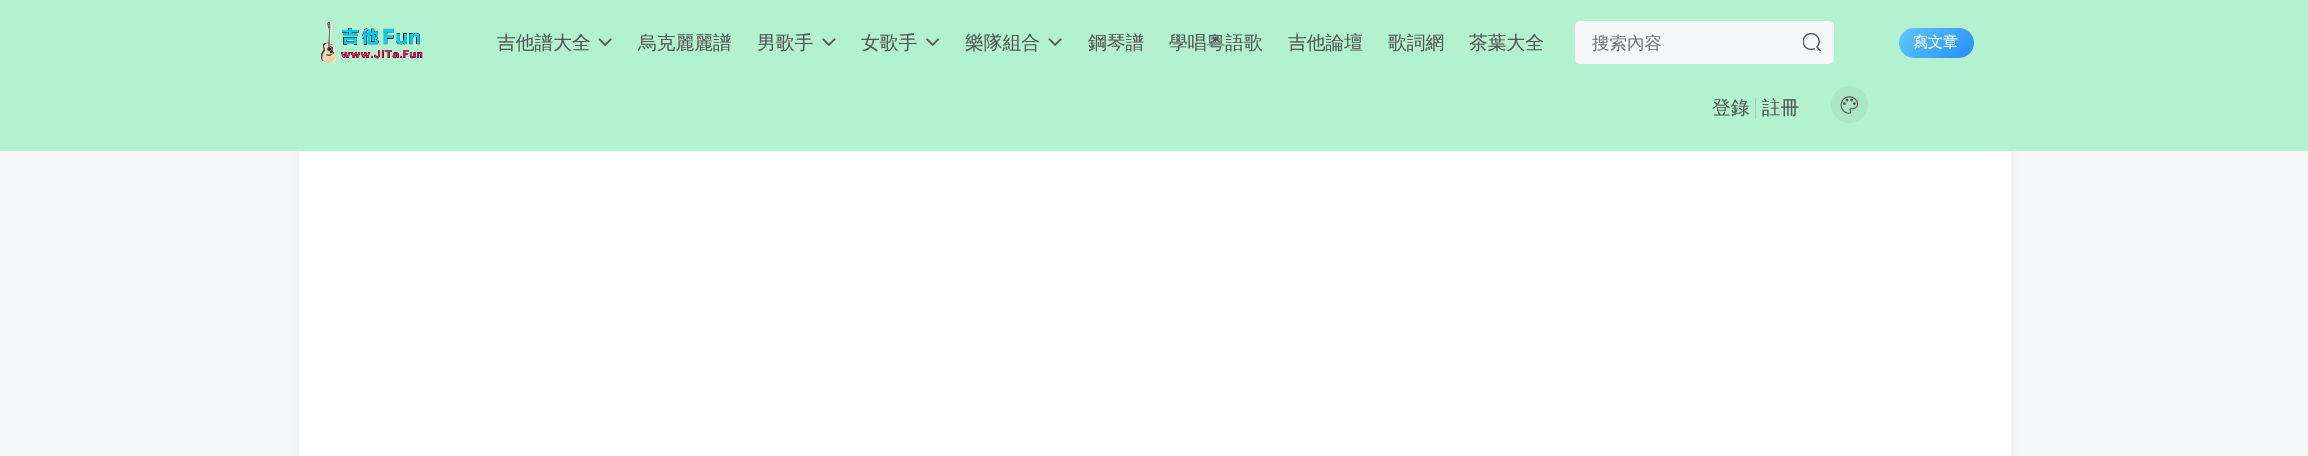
#include "include/core/SkBlurTypes.h"
#include "include/core/SkCanvas.h"
#include "include/core/SkData.h"
#include "include/core/SkFont.h"
#include "include/core/SkFontMgr.h"
#include "include/core/SkImage.h"
#include "include/core/SkMaskFilter.h"
#include "include/core/SkPaint.h"
#include "include/core/SkPathBuilder.h"
#include "include/core/SkTextBlob.h"
#include "include/effects/SkDashPathEffect.h"
#include "include/effects/SkGradientShader.h"
#include "include/utils/SkParsePath.h"

extern sk_sp<SkFontMgr> fontMgr;

void draw(SkCanvas* canvas) {
    SkPaint p;
    p.setAntiAlias(true);
    auto font = [&](const char* family, int weight, float size, bool italic = false) {
        SkFontStyle style(weight, SkFontStyle::kNormal_Width,
            italic ? SkFontStyle::kItalic_Slant : SkFontStyle::kUpright_Slant);
        SkFont result(fontMgr->matchFamilyStyle(family, style), size);
        result.setSubpixel(true);
        return result;
    };
    auto drawPhoto = [&](const char* path, float l, float t, float r, float b) {
        auto image = SkImages::DeferredFromEncodedData(SkData::MakeFromFileName(path));
        canvas->drawImageRect(image, SkRect::MakeLTRB(l, t, r, b), SkSamplingOptions());
    };
    canvas->clear(0xFFF5F6F7);
    p.setColor(0x14747474);
    p.setMaskFilter(SkMaskFilter::MakeBlur(kNormal_SkBlurStyle, 6));
    canvas->drawRoundRect(SkRect::MakeLTRB(299, 110, 2011, 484), 10, 10, p);
    p.setMaskFilter(nullptr);
    p.setColor(0xFFB3F2CE);
    canvas->drawRect(SkRect::MakeLTRB(0, 0, 2308, 151), p);
    drawPhoto("media/1.png", 320, 22, 423, 63);
    auto font1 = font("WenQuanYi Zen Hei", 500, 18.75f);
    p.setColor(0xFF555555);
    canvas->drawString("吉他譜大全", 497, 49, font1, p);
    drawPhoto("media/2.png", 598, 38, 612, 46);
    canvas->drawString("烏克麗麗譜", 638, 49, font1, p);
    canvas->drawString("男歌手", 757, 49, font1, p);
    drawPhoto("media/3.png", 822, 38, 836, 46);
    canvas->drawString("女歌手", 861, 49, font1, p);
    drawPhoto("media/4.png", 926, 38, 940, 46);
    canvas->drawString("樂隊組合", 965, 49, font1, p);
    drawPhoto("media/2.png", 1048, 38, 1062, 46);
    {
        const struct { const char* s; float x, y; } items[] = {
            {"鋼琴譜", 1088, 49},
            {"學唱粵語歌", 1169, 49},
            {"吉他論壇", 1288, 49},
            {"歌詞網", 1388, 49},
            {"茶葉大全", 1469, 49},
        };
        for (auto [s, x, y] : items) {
            canvas->drawString(s, x, y, font1, p);
        }
    }
    p.setColor(0xFFF5F6F7);
    canvas->drawRoundRect(SkRect::MakeLTRB(1575, 21, 1834, 64), 5, 5, p);
    auto font2 = font("WenQuanYi Zen Hei", 500, 17.5f);
    p.setColor(0xFF777777);
    canvas->drawString("搜索內容", 1592, 49, font2, p);
    drawPhoto("media/5.png", 1803, 33, 1821, 51);
    {
        const SkColor colors[] = {0xFF59C3FB, 0xFF268DF7};
        const float stops[] = {0.1f, 1};
        const SkPoint ends[] = {{1910, 16}, {1963, 69}};
        p.setShader(SkGradientShader::MakeLinear(ends, colors, stops, 2, SkTileMode::kClamp));
        p.setAlpha(255);
    }
    canvas->drawRoundRect(SkRect::MakeLTRB(1899, 28, 1974, 58), 15, 15, p);
    auto font3 = font("WenQuanYi Zen Hei", 500, 15);
    p.setShader(nullptr);
    p.setColor(0xFFFFFFFF);
    canvas->drawString("寫文章", 1913, 47, font3, p);
    p.setColor(0xFF555555);
    canvas->drawString("登錄", 1712, 114, font1, p);
    p.setColor(0xFF9FD2B6);
    canvas->drawRect(SkRect::MakeLTRB(1755, 98, 1756, 119), p);
    p.setColor(0xFF555555);
    canvas->drawString("註冊", 1762, 114, font1, p);
    p.setColor(0xFFABE6C5);
    canvas->drawCircle(1849.5f, 104.5f, 18.5f, p);
    drawPhoto("media/6.png", 1840, 96, 1859, 114);
    p.setColor(0xFFFFFFFF);
    canvas->drawRect(SkRect::MakeLTRB(299, 151, 2011, 456), p);
}
